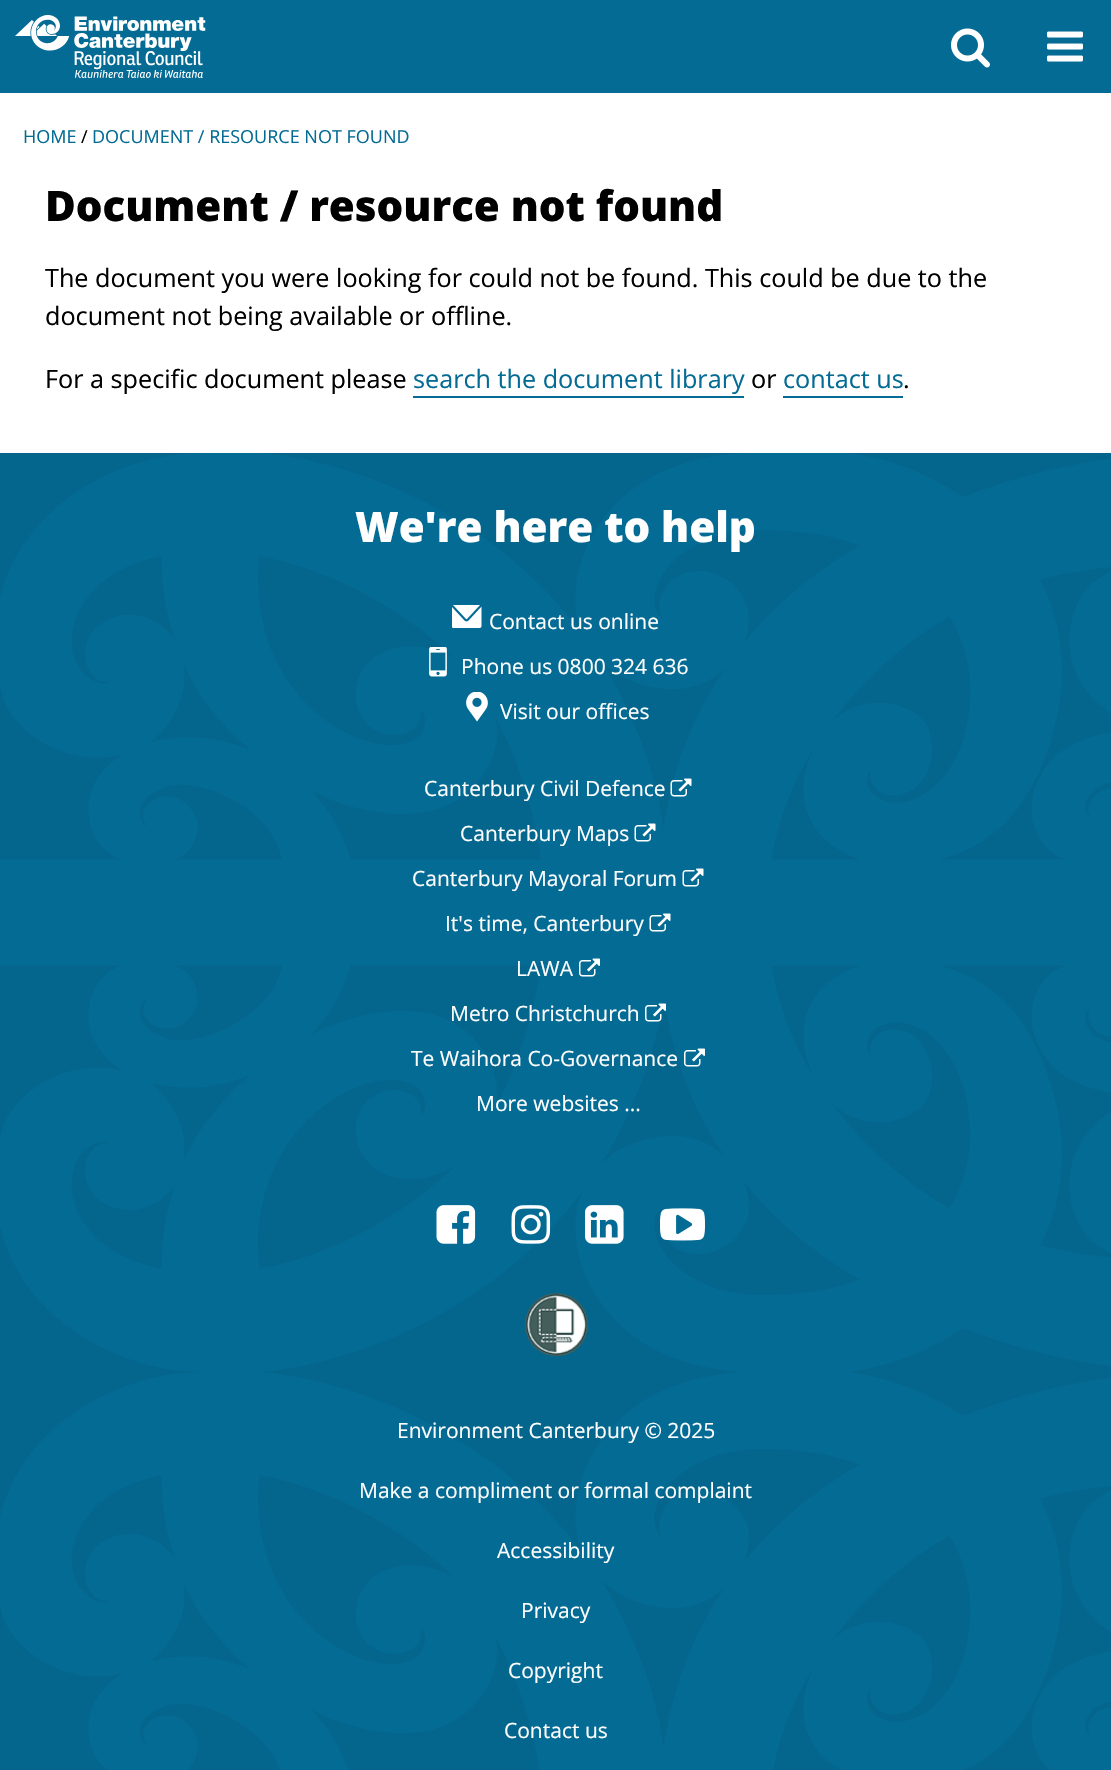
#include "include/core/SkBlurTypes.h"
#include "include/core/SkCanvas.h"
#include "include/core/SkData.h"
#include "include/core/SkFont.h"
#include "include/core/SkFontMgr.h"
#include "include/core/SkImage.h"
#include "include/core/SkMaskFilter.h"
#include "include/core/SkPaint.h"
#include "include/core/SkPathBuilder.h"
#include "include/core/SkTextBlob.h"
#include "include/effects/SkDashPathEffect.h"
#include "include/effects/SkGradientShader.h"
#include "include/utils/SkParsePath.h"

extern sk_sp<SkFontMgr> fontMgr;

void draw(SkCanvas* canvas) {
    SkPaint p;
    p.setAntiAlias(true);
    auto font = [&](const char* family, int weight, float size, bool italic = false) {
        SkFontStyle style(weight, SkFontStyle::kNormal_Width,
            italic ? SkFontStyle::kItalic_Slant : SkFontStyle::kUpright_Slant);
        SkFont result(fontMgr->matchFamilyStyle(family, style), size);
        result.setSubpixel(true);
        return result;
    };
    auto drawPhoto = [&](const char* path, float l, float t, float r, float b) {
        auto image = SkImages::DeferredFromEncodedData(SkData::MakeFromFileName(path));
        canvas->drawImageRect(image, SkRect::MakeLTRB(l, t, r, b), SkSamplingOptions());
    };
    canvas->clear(0xFFFFFFFF);
    p.setColor(0xFF046B94);
    canvas->drawRect(SkRect::MakeLTRB(0, 0, 1111, 93), p);
    drawPhoto("media/1.png", 15, 15, 206, 78);
    drawPhoto("media/2.png", 951, 28, 990, 68);
    drawPhoto("media/3.png", 1047, 31, 1083, 62);
    auto font1 = font("Open Sans", 400, 18);
    canvas->drawString("HOME", 23, 143, font1, p);
    p.setColor(0xFF000000);
    canvas->drawString("/", 81, 143, font1, p);
    p.setColor(0xFF046B94);
    canvas->drawString("DOCUMENT / RESOURCE NOT FOUND", 92, 143, font1, p);
    auto font2 = font("Open Sans", 800, 42);
    p.setColor(0xFF000000);
    canvas->drawString("Document / resource not found", 45, 221, font2, p);
    auto font3 = font("Open Sans", 400, 25.2f);
    {
        const struct { const char* s; float x, y; } items[] = {
            {"The document you were looking for could not be found. This could be due to the", 45, 287},
            {"document not being available or offline.", 45, 325},
            {"For a specific document please", 45, 388},
        };
        for (auto [s, x, y] : items) {
            canvas->drawString(s, x, y, font3, p);
        }
    }
    p.setColor(0xFF046B94);
    canvas->drawString("search the document library", 413, 388, font3, p);
    canvas->drawRect(SkRect::MakeLTRB(413, 396, 744, 398), p);
    p.setColor(0xFF000000);
    canvas->drawString("or", 751, 388, font3, p);
    p.setColor(0xFF046B94);
    canvas->drawString("contact us", 783, 388, font3, p);
    canvas->drawRect(SkRect::MakeLTRB(783, 396, 903, 398), p);
    p.setColor(0xFF000000);
    canvas->drawString(".", 903, 388, font3, p);
    p.setColor(0xFF046B94);
    canvas->drawRect(SkRect::MakeLTRB(0, 453, 1111, 1770), p);
    drawPhoto("media/4.png", 0, 453, 1111, 1770);
    p.setColor(0xFFFFFFFF);
    canvas->drawString("We're here to help", 355, 542, font2, p);
    drawPhoto("media/5.png", 452, 605, 482, 628);
    auto font4 = font("Open Sans", 400, 21);
    canvas->drawString("Contact us online", 489, 629, font4, p);
    drawPhoto("media/6.png", 429, 647, 447, 677);
    canvas->drawString("Phone us 0800 324 636", 461, 674, font4, p);
    drawPhoto("media/7.png", 466, 692, 488, 722);
    canvas->drawString("Visit our offices", 500, 719, font4, p);
    canvas->drawString("Canterbury Civil Defence", 424, 796, font4, p);
    drawPhoto("media/8.png", 670, 778, 692, 797);
    canvas->drawString("Canterbury Maps", 460, 841, font4, p);
    drawPhoto("media/9.png", 634, 823, 656, 842);
    canvas->drawString("Canterbury Mayoral Forum", 412, 886, font4, p);
    drawPhoto("media/9.png", 682, 868, 704, 887);
    canvas->drawString("It's time, Canterbury", 445, 931, font4, p);
    drawPhoto("media/9.png", 649, 913, 671, 932);
    canvas->drawString("LAWA", 516, 976, font4, p);
    drawPhoto("media/10.png", 579, 958, 600, 977);
    canvas->drawString("Metro Christchurch", 450, 1021, font4, p);
    drawPhoto("media/11.png", 645, 1003, 666, 1022);
    canvas->drawString("Te Waihora Co-Governance", 411, 1066, font4, p);
    drawPhoto("media/10.png", 684, 1048, 705, 1067);
    canvas->drawString("More websites ...", 476, 1111, font4, p);
    drawPhoto("media/12.png", 436, 1205, 476, 1244);
    drawPhoto("media/13.png", 511, 1205, 551, 1244);
    drawPhoto("media/14.png", 585, 1205, 624, 1244);
    drawPhoto("media/15.png", 660, 1208, 705, 1241);
    drawPhoto("media/16.png", 525, 1293, 588, 1356);
    {
        const struct { const char* s; float x, y; } items[] = {
            {"Environment Canterbury © 2025", 397, 1438},
            {"Make a compliment or formal complaint", 359, 1498},
            {"Accessibility", 497, 1558},
            {"Privacy", 521, 1618},
            {"Copyright", 508, 1678},
            {"Contact us", 504, 1738},
        };
        for (auto [s, x, y] : items) {
            canvas->drawString(s, x, y, font4, p);
        }
    }
}
